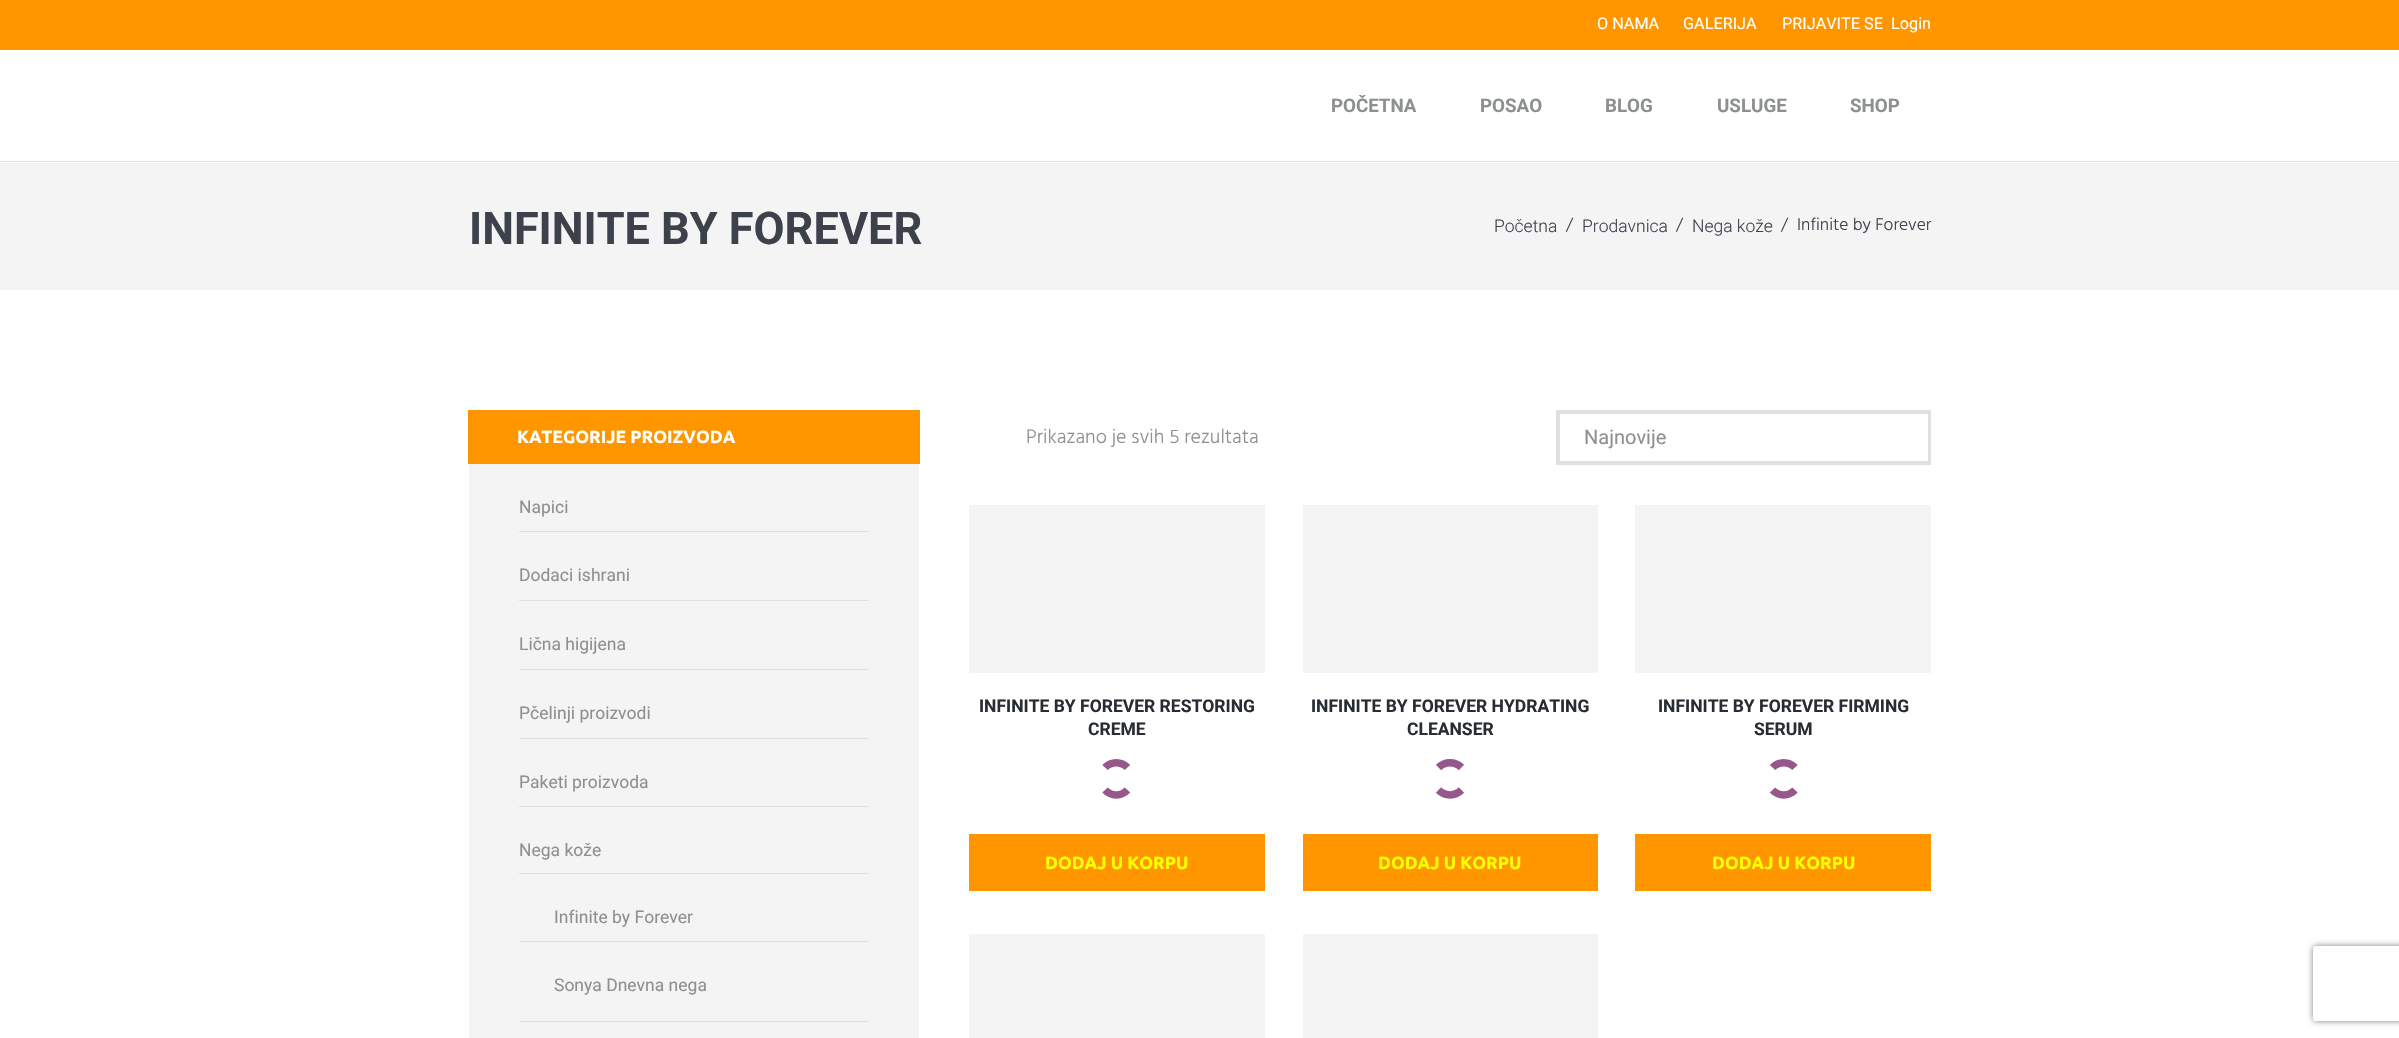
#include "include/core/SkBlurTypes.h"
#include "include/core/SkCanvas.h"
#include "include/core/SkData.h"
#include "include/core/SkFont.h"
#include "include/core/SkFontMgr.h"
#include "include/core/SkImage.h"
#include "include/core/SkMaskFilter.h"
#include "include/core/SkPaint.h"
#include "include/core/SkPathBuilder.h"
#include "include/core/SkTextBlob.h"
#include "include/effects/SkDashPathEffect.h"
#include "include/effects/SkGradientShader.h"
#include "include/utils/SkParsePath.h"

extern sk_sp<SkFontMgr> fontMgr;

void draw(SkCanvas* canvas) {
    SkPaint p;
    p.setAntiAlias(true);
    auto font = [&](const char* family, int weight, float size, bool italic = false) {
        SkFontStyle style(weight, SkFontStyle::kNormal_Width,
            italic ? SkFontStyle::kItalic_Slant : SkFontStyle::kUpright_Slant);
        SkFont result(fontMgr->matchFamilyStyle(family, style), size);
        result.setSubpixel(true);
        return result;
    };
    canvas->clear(0xFFFFFFFF);
    p.setColor(0xFFFF9600);
    canvas->drawRect(SkRect::MakeLTRB(0, 0, 2399, 50), p);
    auto font1 = font("Roboto", 400, 16.25f);
    p.setColor(0xFFFFFFFF);
    {
        const struct { const char* s; float x, y; } items[] = {
            {"O NAMA", 1597, 29},
            {"GALERIJA", 1683, 29},
            {"PRIJAVITE SE", 1782, 29},
            {"Login", 1891, 29},
        };
        for (auto [s, x, y] : items) {
            canvas->drawString(s, x, y, font1, p);
        }
    }
    p.setColor(0xFFE0E0E0);
    canvas->drawRect(SkRect::MakeLTRB(0, 161, 2399, 162), p);
    auto font2 = font("Roboto", 700, 18.75f);
    p.setColor(0xFF8D9091);
    {
        const struct { const char* s; float x, y; } items[] = {
            {"POČETNA", 1331, 112},
            {"POSAO", 1480, 112},
            {"BLOG", 1605, 112},
            {"USLUGE", 1717, 112},
            {"SHOP", 1850, 112},
        };
        for (auto [s, x, y] : items) {
            canvas->drawString(s, x, y, font2, p);
        }
    }
    p.setColor(0xFFF4F4F4);
    canvas->drawRect(SkRect::MakeLTRB(0, 164, 2399, 290), p);
    p.setColor(0xFFF2F2F2);
    canvas->drawRect(SkRect::MakeLTRB(0, 163, 2399, 164), p);
    auto font3 = font("Roboto", 700, 45);
    p.setColor(0xFF3C414C);
    canvas->drawString("INFINITE BY FOREVER", 469, 244, font3, p);
    auto font4 = font("Roboto", 300, 17.5f);
    canvas->drawString("Početna", 1494, 232, font4, p);
    auto font5 = font("Hind", 300, 17.5f);
    canvas->drawString("/", 1566, 230, font5, p);
    canvas->drawString("Prodavnica", 1582, 232, font4, p);
    canvas->drawString("/", 1676, 230, font5, p);
    canvas->drawString("Nega kože", 1692, 232, font4, p);
    canvas->drawString("/", 1781, 230, font5, p);
    canvas->drawString("Infinite by Forever", 1797, 230, font5, p);
    p.setColor(0xFFF4F4F4);
    canvas->drawRect(SkRect::MakeLTRB(469, 464, 919, 1038), p);
    p.setColor(0xFFFF9600);
    canvas->drawRect(SkRect::MakeLTRB(468, 410, 920, 464), p);
    auto font6 = font("Ubuntu", 700, 17.5f);
    p.setColor(0xFFFFFFFF);
    canvas->drawString("KATEGORIJE PROIZVODA", 517, 443, font6, p);
    auto font7 = font("Roboto", 400, 17.5f);
    p.setColor(0xFF8D9091);
    canvas->drawString("Napici", 519, 513, font7, p);
    p.setColor(0xFFE0E0E0);
    canvas->drawRect(SkRect::MakeLTRB(519, 531, 869, 532), p);
    p.setColor(0xFF8D9091);
    canvas->drawString("Dodaci ishrani", 519, 581, font7, p);
    p.setColor(0xFFE0E0E0);
    canvas->drawRect(SkRect::MakeLTRB(519, 600, 869, 601), p);
    p.setColor(0xFF8D9091);
    canvas->drawString("Lična higijena", 519, 650, font7, p);
    p.setColor(0xFFE0E0E0);
    canvas->drawRect(SkRect::MakeLTRB(519, 669, 869, 670), p);
    p.setColor(0xFF8D9091);
    canvas->drawString("Pčelinji proizvodi", 519, 719, font7, p);
    p.setColor(0xFFE0E0E0);
    canvas->drawRect(SkRect::MakeLTRB(519, 738, 869, 739), p);
    p.setColor(0xFF8D9091);
    canvas->drawString("Paketi proizvoda", 519, 788, font7, p);
    p.setColor(0xFFE0E0E0);
    canvas->drawRect(SkRect::MakeLTRB(519, 806, 869, 807), p);
    p.setColor(0xFF8D9091);
    canvas->drawString("Nega kože", 519, 856, font7, p);
    p.setColor(0xFFE0E0E0);
    canvas->drawRect(SkRect::MakeLTRB(519, 873, 869, 874), p);
    p.setColor(0xFF8D9091);
    canvas->drawString("Infinite by Forever", 554, 923, font7, p);
    p.setColor(0xFFE0E0E0);
    canvas->drawRect(SkRect::MakeLTRB(519, 941, 869, 942), p);
    p.setColor(0xFF8D9091);
    canvas->drawString("Sonya Dnevna nega", 554, 991, font7, p);
    p.setColor(0xFFE0E0E0);
    canvas->drawRect(SkRect::MakeLTRB(519, 1021, 869, 1022), p);
    auto font8 = font("Hind", 300, 20);
    p.setColor(0xFF8D9091);
    canvas->drawString("Prikazano je svih 5 rezultata", 1026, 443, font8, p);
    p.setStyle(SkPaint::kStroke_Style);
    p.setStrokeWidth(4);
    p.setColor(0xFFE0E0E0);
    canvas->drawRect(SkRect::MakeLTRB(1558, 412, 1929, 463), p);
    auto font9 = font("Roboto", 400, 20);
    p.setStyle(SkPaint::kFill_Style);
    p.setColor(0xFF8D9091);
    canvas->drawString("Najnovije", 1584, 444, font9, p);
    p.setColor(0xFFFFFFFF);
    canvas->drawRect(SkRect::MakeLTRB(1927, 414, 1928, 461), p);
    p.setColor(0xFFF4F4F4);
    canvas->drawRect(SkRect::MakeLTRB(969, 505, 1265, 673), p);
    auto font10 = font("Roboto", 700, 17.5f);
    p.setColor(0xFF282C33);
    canvas->drawString("INFINITE BY FOREVER RESTORING", 979, 712, font10, p);
    canvas->drawString("CREME", 1088, 735, font10, p);
    p.setStyle(SkPaint::kStroke_Style);
    p.setStrokeWidth(7.5f);
    p.setColor(0xFF96588A);
    canvas->drawPath(SkPathBuilder().moveTo(1105, 767.5f).cubicTo(1111, 761, 1121.5f, 761, 1127.5f, 767.5f).moveTo(1127.5f, 790).cubicTo(1121.5f, 796.5f, 1111, 796.5f, 1105, 790).detach(), p);
    p.setStyle(SkPaint::kFill_Style);
    p.setColor(0xFFFF9600);
    canvas->drawRect(SkRect::MakeLTRB(969, 834, 1265, 891), p);
    p.setColor(0xFFFCFF00);
    canvas->drawString("DODAJ U KORPU", 1045, 869, font6, p);
    p.setColor(0xFFF4F4F4);
    canvas->drawRect(SkRect::MakeLTRB(1303, 505, 1598, 673), p);
    p.setColor(0xFF282C33);
    canvas->drawString("INFINITE BY FOREVER HYDRATING", 1311, 712, font10, p);
    canvas->drawString("CLEANSER", 1407, 735, font10, p);
    p.setStyle(SkPaint::kStroke_Style);
    p.setColor(0xFF96588A);
    canvas->drawPath(SkPathBuilder().moveTo(1438.5f, 767.5f).cubicTo(1445, 761, 1455, 761, 1461.5f, 767.5f).moveTo(1461.5f, 790).cubicTo(1455, 796.5f, 1445, 796.5f, 1438.5f, 790).detach(), p);
    p.setStyle(SkPaint::kFill_Style);
    p.setColor(0xFFFF9600);
    canvas->drawRect(SkRect::MakeLTRB(1303, 834, 1598, 891), p);
    p.setColor(0xFFFCFF00);
    canvas->drawString("DODAJ U KORPU", 1378, 869, font6, p);
    p.setColor(0xFFF4F4F4);
    canvas->drawRect(SkRect::MakeLTRB(1635, 505, 1931, 673), p);
    p.setColor(0xFF282C33);
    canvas->drawString("INFINITE BY FOREVER FIRMING", 1658, 712, font10, p);
    canvas->drawString("SERUM", 1754, 735, font10, p);
    p.setStyle(SkPaint::kStroke_Style);
    p.setColor(0xFF96588A);
    canvas->drawPath(SkPathBuilder().moveTo(1772.5f, 767.5f).cubicTo(1778.5f, 761, 1789, 761, 1795, 767.5f).moveTo(1795, 790).cubicTo(1789, 796.5f, 1778.5f, 796.5f, 1772.5f, 790).detach(), p);
    p.setStyle(SkPaint::kFill_Style);
    p.setColor(0xFFFF9600);
    canvas->drawRect(SkRect::MakeLTRB(1635, 834, 1931, 891), p);
    p.setColor(0xFFFCFF00);
    canvas->drawString("DODAJ U KORPU", 1712, 869, font6, p);
    p.setColor(0xFFF4F4F4);
    canvas->drawRect(SkRect::MakeLTRB(969, 934, 1265, 1038), p);
    canvas->drawRect(SkRect::MakeLTRB(1303, 934, 1598, 1038), p);
    canvas->save();
    canvas->clipPath(SkPathBuilder(SkPathFillType::kEvenOdd).moveTo(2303, 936).lineTo(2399, 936).lineTo(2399, 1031).lineTo(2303, 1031).close().moveTo(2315.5f, 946).lineTo(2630.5f, 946).cubicTo(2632, 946, 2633, 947, 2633, 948.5f).lineTo(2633, 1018.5f).cubicTo(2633, 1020, 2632, 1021, 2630.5f, 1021).lineTo(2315.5f, 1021).cubicTo(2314, 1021, 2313, 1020, 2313, 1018.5f).lineTo(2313, 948.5f).cubicTo(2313, 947, 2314, 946, 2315.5f, 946).close().detach(), true);
    p.setColor(0xFF808080);
    p.setMaskFilter(SkMaskFilter::MakeBlur(kNormal_SkBlurStyle, 3));
    canvas->drawRoundRect(SkRect::MakeLTRB(2313, 946, 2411, 1021), 2.5f, 2.5f, p);
    p.setMaskFilter(nullptr);
    canvas->restore();
}
